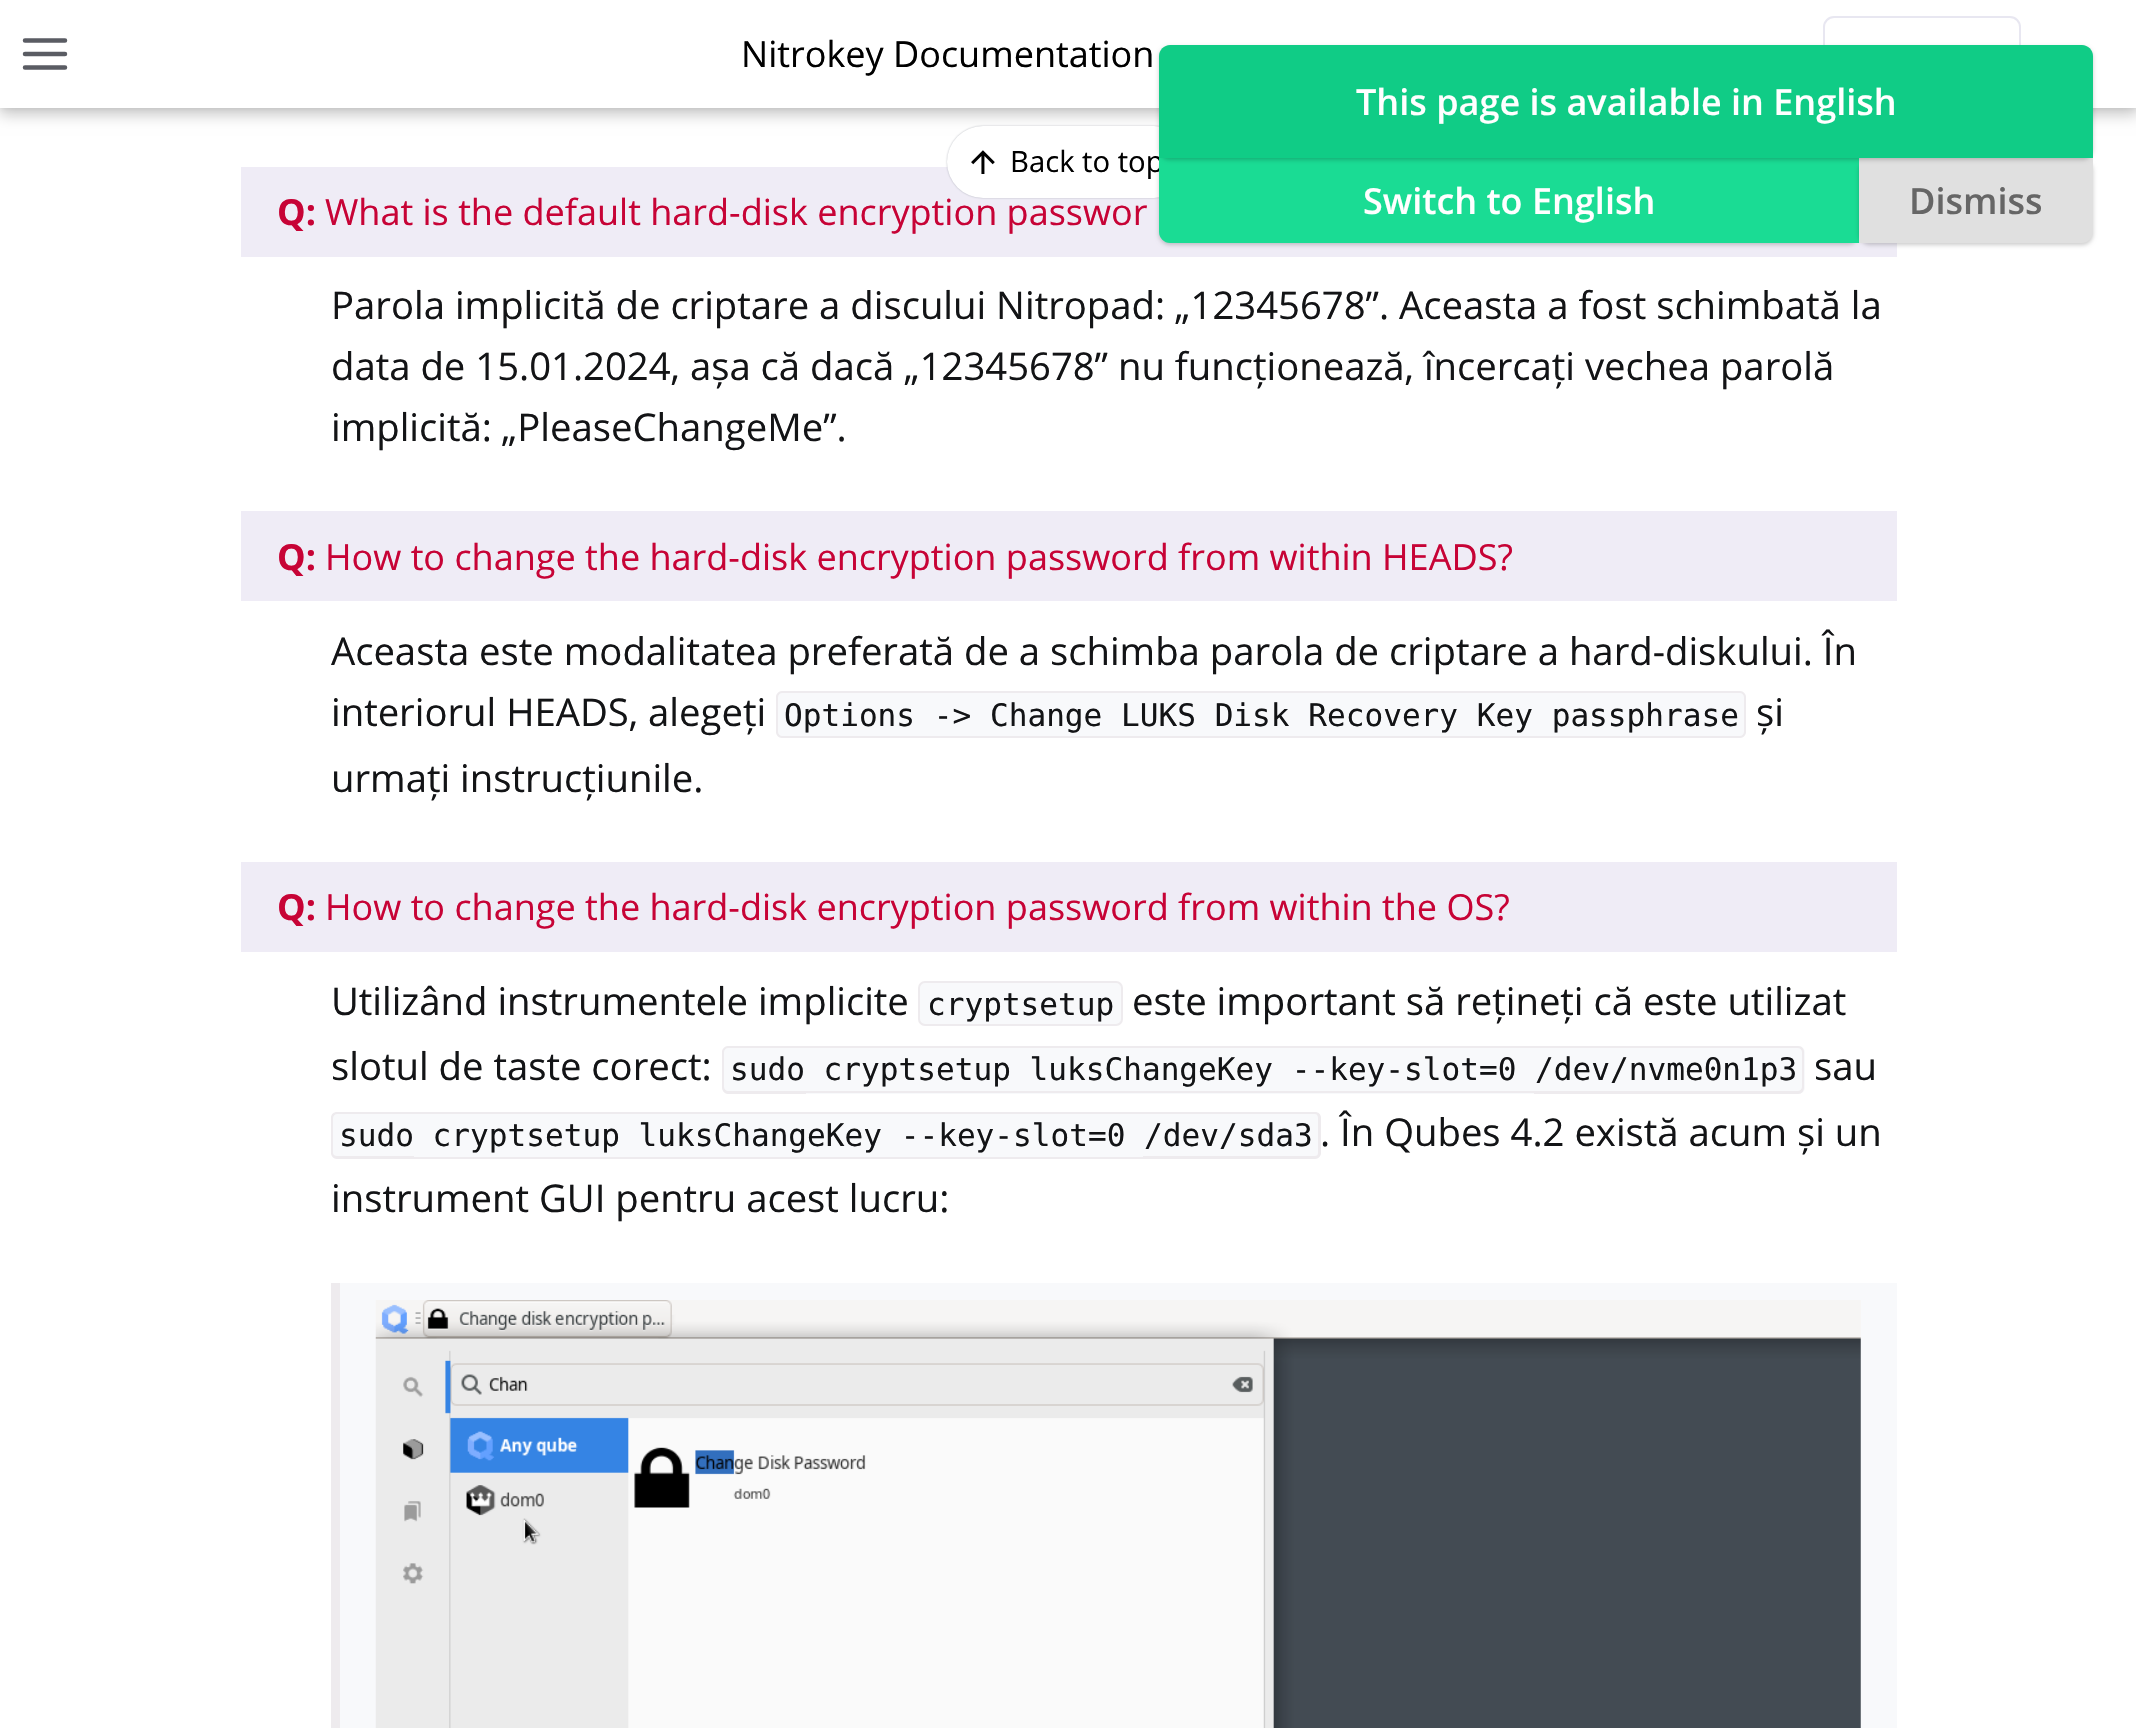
#include "include/core/SkBlurTypes.h"
#include "include/core/SkCanvas.h"
#include "include/core/SkData.h"
#include "include/core/SkFont.h"
#include "include/core/SkFontMgr.h"
#include "include/core/SkImage.h"
#include "include/core/SkMaskFilter.h"
#include "include/core/SkPaint.h"
#include "include/core/SkPathBuilder.h"
#include "include/core/SkTextBlob.h"
#include "include/effects/SkDashPathEffect.h"
#include "include/effects/SkGradientShader.h"
#include "include/utils/SkParsePath.h"

extern sk_sp<SkFontMgr> fontMgr;

void draw(SkCanvas* canvas) {
    SkPaint p;
    p.setAntiAlias(true);
    auto font = [&](const char* family, int weight, float size, bool italic = false) {
        SkFontStyle style(weight, SkFontStyle::kNormal_Width,
            italic ? SkFontStyle::kItalic_Slant : SkFontStyle::kUpright_Slant);
        SkFont result(fontMgr->matchFamilyStyle(family, style), size);
        result.setSubpixel(true);
        return result;
    };
    auto drawPhoto = [&](const char* path, float l, float t, float r, float b) {
        auto image = SkImages::DeferredFromEncodedData(SkData::MakeFromFileName(path));
        canvas->drawImageRect(image, SkRect::MakeLTRB(l, t, r, b), SkSamplingOptions());
    };
    canvas->clear(0xFFFFFFFF);
    p.setColor(0x33000000);
    p.setMaskFilter(SkMaskFilter::MakeBlur(kNormal_SkBlurStyle, 7));
    canvas->drawRect(SkRect::MakeLTRB(0, 7, 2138, 115), p);
    p.setMaskFilter(nullptr);
    p.setColor(0x1A000000);
    p.setMaskFilter(SkMaskFilter::MakeBlur(kNormal_SkBlurStyle, 3.5f));
    canvas->drawRect(SkRect::MakeLTRB(0, 0, 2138, 108), p);
    p.setMaskFilter(nullptr);
    p.setColor(0xFFFFFFFF);
    canvas->drawRect(SkRect::MakeLTRB(0, 0, 2136, 108), p);
    p.setStyle(SkPaint::kStroke_Style);
    p.setStrokeWidth(4.5f);
    p.setStrokeCap(SkPaint::kRound_Cap);
    p.setStrokeJoin(SkPaint::kRound_Join);
    p.setColor(0xFF5A5C63);
    canvas->drawPath(SkPathBuilder().moveTo(25, 54).lineTo(65, 54).moveTo(25, 40.5f).lineTo(65, 40.5f).moveTo(25, 67.5f).lineTo(65, 67.5f).detach(), p);
    auto font1 = font("Open Sans", 400, 36);
    p.setStyle(SkPaint::kFill_Style);
    p.setColor(0xFF000000);
    canvas->drawString("Nitrokey Documentation", 741, 67, font1, p);
    p.setStyle(SkPaint::kStroke_Style);
    p.setStrokeWidth(2);
    p.setStrokeCap(SkPaint::kButt_Cap);
    p.setStrokeJoin(SkPaint::kMiter_Join);
    p.setColor(0xFFE8E7F1);
    canvas->drawRoundRect(SkRect::MakeLTRB(1824, 17, 2020, 91), 10, 10, p);
    p.setStyle(SkPaint::kFill_Style);
    p.setColor(0xFFEFECF6);
    canvas->drawRect(SkRect::MakeLTRB(241, 167, 1897, 257), p);
    p.setColor(0x806B7280);
    p.setMaskFilter(SkMaskFilter::MakeBlur(kNormal_SkBlurStyle, 1));
    canvas->drawRoundRect(SkRect::MakeLTRB(947, 126, 1190, 198), 36, 36, p);
    p.setMaskFilter(nullptr);
    p.setColor(0xFFC70336);
    canvas->drawString("What is the default hard-disk encryption passwor", 325, 225, font1, p);
    p.setColor(0xFFFFFFFF);
    canvas->drawRoundRect(SkRect::MakeLTRB(947, 126, 1190, 198), 36, 36, p);
    drawPhoto("media/1.png", 971, 150, 995, 174);
    auto font2 = font("Open Sans", 400, 29.25f);
    p.setColor(0xFF000000);
    canvas->drawString("Back to top", 1010, 172, font2, p);
    p.setColor(0x33000000);
    p.setMaskFilter(SkMaskFilter::MakeBlur(kNormal_SkBlurStyle, 2));
    canvas->drawRoundRect(SkRect::MakeLTRB(1159, 160, 1859, 245), 11, 11, p);
    p.setMaskFilter(nullptr);
    p.setColor(0xFF1ADC94);
    canvas->drawPath(SkPathBuilder().moveTo(1159, 158).lineTo(1859, 158).lineTo(1859, 243).lineTo(1170, 243).cubicTo(1164, 243, 1159, 238, 1159, 232).close().detach(), p);
    p.setColor(0x33000000);
    p.setMaskFilter(SkMaskFilter::MakeBlur(kNormal_SkBlurStyle, 2));
    canvas->drawRoundRect(SkRect::MakeLTRB(1859, 160, 2093, 245), 11, 11, p);
    p.setMaskFilter(nullptr);
    p.setColor(0xFFE0E0E0);
    canvas->drawPath(SkPathBuilder().moveTo(1859, 158).lineTo(2093, 158).lineTo(2093, 232).cubicTo(2093, 238, 2088, 243, 2082, 243).lineTo(1859, 243).close().detach(), p);
    p.setColor(0x33000000);
    p.setMaskFilter(SkMaskFilter::MakeBlur(kNormal_SkBlurStyle, 2));
    canvas->drawRoundRect(SkRect::MakeLTRB(1159, 47, 2093, 160), 11, 11, p);
    p.setMaskFilter(nullptr);
    p.setColor(0xFF10CC86);
    canvas->drawPath(SkPathBuilder().moveTo(1170, 45).lineTo(2082, 45).cubicTo(2088, 45, 2093, 50, 2093, 56).lineTo(2093, 158).lineTo(1159, 158).lineTo(1159, 56).cubicTo(1159, 50, 1164, 45, 1170, 45).close().detach(), p);
    auto font3 = font("Open Sans", 600, 36);
    p.setColor(0xFFFFFFFF);
    canvas->drawString("This page is available in English", 1356, 115, font3, p);
    canvas->drawString("Switch to English", 1363, 214, font3, p);
    p.setColor(0xFF666666);
    canvas->drawString("Dismiss", 1909, 214, font3, p);
    auto font4 = font("Open Sans", 700, 36);
    p.setColor(0xFFC70336);
    canvas->drawString("Q:", 277, 225, font4, p);
    auto font5 = font("Open Sans", 400, 38.25f);
    p.setColor(0xFF131416);
    {
        const struct { const char* s; float x, y; } items[] = {
            {"Parola implicită de criptare a discului Nitropad: „12345678”. Aceasta a fost schimbată la", 331, 319},
            {"data de 15.01.2024, așa că dacă „12345678” nu funcționează, încercați vechea parolă", 331, 380},
            {"implicită: „PleaseChangeMe”.", 331, 441},
        };
        for (auto [s, x, y] : items) {
            canvas->drawString(s, x, y, font5, p);
        }
    }
    p.setColor(0xFFEFECF6);
    canvas->drawRect(SkRect::MakeLTRB(241, 511, 1897, 601), p);
    p.setColor(0xFFC70336);
    canvas->drawString("Q:", 277, 570, font4, p);
    canvas->drawString("How to change the hard-disk encryption password from within HEADS?", 325, 570, font1, p);
    p.setColor(0xFF131416);
    canvas->drawString("Aceasta este modalitatea preferată de a schimba parola de criptare a hard-diskului. În", 331, 665, font5, p);
    canvas->drawString("interiorul HEADS, alegeți", 331, 726, font5, p);
    p.setColor(0xFFF8F9FB);
    canvas->drawPath(SkPathBuilder().moveTo(783, 691).lineTo(916, 691).lineTo(916, 738).lineTo(783, 738).cubicTo(779, 738, 776, 735, 776, 731).lineTo(776, 698).cubicTo(776, 694, 779, 691, 783, 691).close().detach(), p);
    p.setColor(0xFFEEEBEE);
    canvas->drawPath(SkPathBuilder(SkPathFillType::kEvenOdd).moveTo(782, 691).lineTo(916, 691).lineTo(916, 738).lineTo(782, 738).cubicTo(779, 738, 776, 735, 776, 732).lineTo(776, 697).cubicTo(776, 694, 779, 691, 782, 691).close().moveTo(782, 693).lineTo(916, 693).lineTo(916, 736).lineTo(782, 736).cubicTo(780, 736, 778, 734, 778, 732).lineTo(778, 697).cubicTo(778, 695, 780, 693, 782, 693).close().detach(), p);
    p.setColor(0xFFF8F9FB);
    canvas->drawRect(SkRect::MakeLTRB(916, 693, 1550, 736), p);
    canvas->drawPath(SkPathBuilder().moveTo(1550, 691).lineTo(1739, 691).cubicTo(1743, 691, 1746, 694, 1746, 698).lineTo(1746, 731).cubicTo(1746, 735, 1743, 738, 1739, 738).lineTo(1550, 738).close().detach(), p);
    p.setColor(0xFFEEEBEE);
    canvas->drawPath(SkPathBuilder(SkPathFillType::kEvenOdd).moveTo(1550, 691).lineTo(1740, 691).cubicTo(1743, 691, 1746, 694, 1746, 697).lineTo(1746, 732).cubicTo(1746, 735, 1743, 738, 1740, 738).lineTo(1550, 738).close().moveTo(1550, 693).lineTo(1740, 693).cubicTo(1742, 693, 1744, 695, 1744, 697).lineTo(1744, 732).cubicTo(1744, 734, 1742, 736, 1740, 736).lineTo(1550, 736).close().detach(), p);
    auto font6 = font("DejaVu Sans Mono", 400, 31.1f);
    p.setColor(0xFF131416);
    canvas->drawString("Options -> Change LUKS Disk Recovery Key passphrase", 784, 726, font6, p);
    p.setColor(0xFFEEEBEE);
    canvas->drawRect(SkRect::MakeLTRB(916, 691, 1550, 693), p);
    canvas->drawRect(SkRect::MakeLTRB(916, 736, 1550, 738), p);
    p.setColor(0xFF131416);
    canvas->drawString("și", 1756, 726, font5, p);
    canvas->drawString("urmați instrucțiunile.", 331, 792, font5, p);
    p.setColor(0xFFEFECF6);
    canvas->drawRect(SkRect::MakeLTRB(241, 862, 1897, 952), p);
    p.setColor(0xFFC70336);
    canvas->drawString("Q:", 277, 920, font4, p);
    canvas->drawString("How to change the hard-disk encryption password from within the OS?", 325, 920, font1, p);
    p.setColor(0xFF131416);
    canvas->drawString("Utilizând instrumentele implicite", 331, 1015, font5, p);
    p.setColor(0xFFF8F9FB);
    canvas->drawRoundRect(SkRect::MakeLTRB(919, 982, 1122, 1025), 6, 6, p);
    p.setStyle(SkPaint::kStroke_Style);
    p.setColor(0xFFEEEBEE);
    canvas->drawRoundRect(SkRect::MakeLTRB(919, 982, 1122, 1025), 6, 6, p);
    p.setStyle(SkPaint::kFill_Style);
    p.setColor(0xFF131416);
    canvas->drawString("cryptsetup", 927, 1015, font6, p);
    canvas->drawString("este important să rețineți că este utilizat", 1132, 1015, font5, p);
    canvas->drawString("slotul de taste corect:", 331, 1080, font5, p);
    p.setColor(0xFFF8F9FB);
    canvas->drawPath(SkPathBuilder().moveTo(729, 1046).lineTo(806, 1046).lineTo(806, 1094).lineTo(729, 1094).cubicTo(725, 1094, 722, 1091, 722, 1087).lineTo(722, 1053).cubicTo(722, 1049, 725, 1046, 729, 1046).close().detach(), p);
    p.setColor(0xFFEEEBEE);
    canvas->drawPath(SkPathBuilder(SkPathFillType::kEvenOdd).moveTo(728, 1046).lineTo(806, 1046).lineTo(806, 1094).lineTo(728, 1094).cubicTo(725, 1094, 722, 1091, 722, 1087).lineTo(722, 1052).cubicTo(722, 1049, 725, 1046, 728, 1046).close().moveTo(728, 1048).lineTo(806, 1048).lineTo(806, 1091).lineTo(728, 1091).cubicTo(726, 1091, 724, 1089, 724, 1087).lineTo(724, 1052).cubicTo(724, 1050, 726, 1048, 728, 1048).close().detach(), p);
    p.setColor(0xFFF8F9FB);
    canvas->drawRect(SkRect::MakeLTRB(806, 1048, 1535, 1094), p);
    canvas->drawPath(SkPathBuilder().moveTo(1535, 1046).lineTo(1798, 1046).cubicTo(1802, 1046, 1805, 1049, 1805, 1053).lineTo(1805, 1087).cubicTo(1805, 1091, 1802, 1094, 1798, 1094).lineTo(1535, 1094).close().detach(), p);
    p.setColor(0xFFEEEBEE);
    canvas->drawRect(SkRect::MakeLTRB(806, 1046, 1535, 1048), p);
    canvas->drawRect(SkRect::MakeLTRB(806, 1091, 1535, 1093), p);
    canvas->drawPath(SkPathBuilder(SkPathFillType::kEvenOdd).moveTo(1534, 1046).lineTo(1798, 1046).cubicTo(1802, 1046, 1804, 1049, 1804, 1052).lineTo(1804, 1087).cubicTo(1804, 1091, 1802, 1094, 1798, 1094).lineTo(1534, 1094).close().moveTo(1534, 1048).lineTo(1798, 1048).cubicTo(1800, 1048, 1802, 1050, 1802, 1052).lineTo(1802, 1087).cubicTo(1802, 1089, 1800, 1091, 1798, 1091).lineTo(1534, 1091).close().detach(), p);
    p.setColor(0xFF131416);
    canvas->drawString("sudo cryptsetup luksChangeKey --key-slot=0 /dev/nvme0n1p3", 730, 1080, font6, p);
    canvas->drawString("sau", 1814, 1080, font5, p);
    p.setColor(0xFFF8F9FB);
    canvas->drawPath(SkPathBuilder().moveTo(338, 1112).lineTo(414, 1112).lineTo(414, 1159).lineTo(338, 1159).cubicTo(334, 1159, 331, 1156, 331, 1152).lineTo(331, 1119).cubicTo(331, 1115, 334, 1112, 338, 1112).close().detach(), p);
    p.setColor(0xFFEEEBEE);
    canvas->drawPath(SkPathBuilder(SkPathFillType::kEvenOdd).moveTo(337, 1112).lineTo(414, 1112).lineTo(414, 1159).lineTo(337, 1159).cubicTo(334, 1159, 331, 1156, 331, 1153).lineTo(331, 1118).cubicTo(331, 1114, 334, 1112, 337, 1112).close().moveTo(337, 1114).lineTo(414, 1114).lineTo(414, 1156).lineTo(337, 1156).cubicTo(335, 1156, 333, 1155, 333, 1153).lineTo(333, 1118).cubicTo(333, 1116, 335, 1114, 337, 1114).close().detach(), p);
    p.setColor(0xFFF8F9FB);
    canvas->drawRect(SkRect::MakeLTRB(414, 1114, 1143, 1157), p);
    canvas->drawPath(SkPathBuilder().moveTo(1143, 1112).lineTo(1314, 1112).cubicTo(1318, 1112, 1321, 1115, 1321, 1119).lineTo(1321, 1152).cubicTo(1321, 1156, 1318, 1159, 1314, 1159).lineTo(1143, 1159).close().detach(), p);
    p.setColor(0xFFEEEBEE);
    canvas->drawPath(SkPathBuilder(SkPathFillType::kEvenOdd).moveTo(1143, 1112).lineTo(1315, 1112).cubicTo(1318, 1112, 1321, 1114, 1321, 1118).lineTo(1321, 1153).cubicTo(1321, 1156, 1318, 1159, 1315, 1159).lineTo(1143, 1159).close().moveTo(1143, 1114).lineTo(1315, 1114).cubicTo(1317, 1114, 1318, 1116, 1318, 1118).lineTo(1318, 1153).cubicTo(1318, 1155, 1317, 1156, 1315, 1156).lineTo(1143, 1156).close().detach(), p);
    p.setColor(0xFF131416);
    canvas->drawString("sudo cryptsetup luksChangeKey --key-slot=0 /dev/sda3", 339, 1146, font6, p);
    p.setColor(0xFFEEEBEE);
    canvas->drawRect(SkRect::MakeLTRB(414, 1112, 1143, 1114), p);
    canvas->drawRect(SkRect::MakeLTRB(414, 1157, 1143, 1159), p);
    p.setColor(0xFF131416);
    canvas->drawString(". În Qubes 4.2 există acum și un", 1320, 1146, font5, p);
    canvas->drawString("instrument GUI pentru acest lucru:", 331, 1212, font5, p);
    p.setColor(0xFFF8F9FB);
    canvas->drawRect(SkRect::MakeLTRB(340, 1283, 1897, 1728), p);
    p.setColor(0xFFEEEBEE);
    canvas->drawRect(SkRect::MakeLTRB(331, 1283, 340, 1728), p);
    drawPhoto("media/2.png", 375, 1300, 1861, 1728);
}
